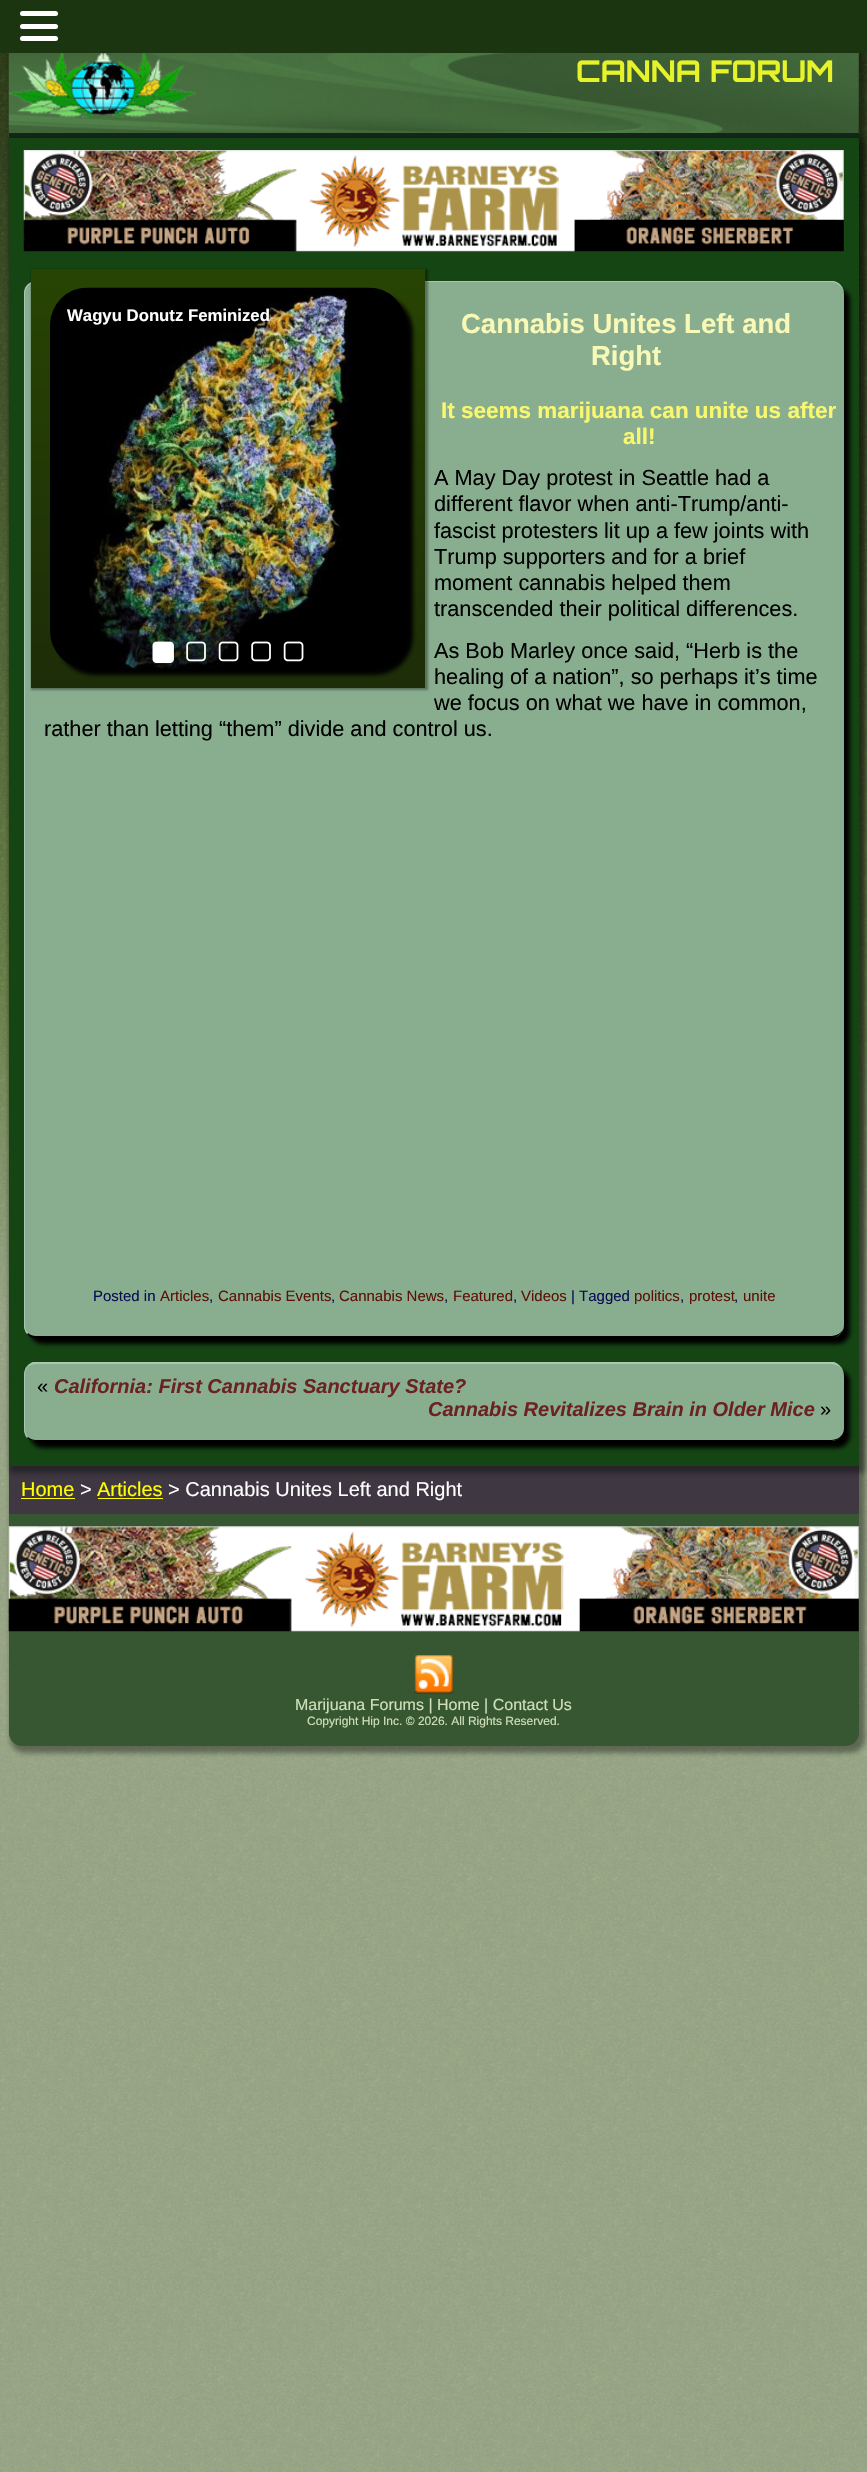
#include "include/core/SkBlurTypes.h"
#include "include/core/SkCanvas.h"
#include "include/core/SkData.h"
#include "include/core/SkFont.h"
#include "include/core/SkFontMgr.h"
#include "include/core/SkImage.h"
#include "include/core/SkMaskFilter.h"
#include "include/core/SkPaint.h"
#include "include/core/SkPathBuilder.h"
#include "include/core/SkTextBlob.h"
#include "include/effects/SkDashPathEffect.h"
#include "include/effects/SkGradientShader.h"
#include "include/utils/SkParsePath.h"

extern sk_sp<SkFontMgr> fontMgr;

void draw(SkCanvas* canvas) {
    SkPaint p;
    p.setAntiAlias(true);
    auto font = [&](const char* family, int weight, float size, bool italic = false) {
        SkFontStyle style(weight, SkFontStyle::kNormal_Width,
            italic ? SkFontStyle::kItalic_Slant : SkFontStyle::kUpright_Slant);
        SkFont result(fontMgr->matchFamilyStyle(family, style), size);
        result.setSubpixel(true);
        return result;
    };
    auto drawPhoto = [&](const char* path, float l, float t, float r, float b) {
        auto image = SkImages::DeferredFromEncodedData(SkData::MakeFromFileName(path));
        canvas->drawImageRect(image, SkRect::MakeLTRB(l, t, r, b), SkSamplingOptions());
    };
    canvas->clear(0xFFFFFFFF);
    drawPhoto("media/1.png", 0, 53, 867, 2472);
    p.setColor(0x5E000000);
    p.setMaskFilter(SkMaskFilter::MakeBlur(kNormal_SkBlurStyle, 2.5f));
    canvas->drawRoundRect(SkRect::MakeLTRB(10, 33, 865, 1753), 15, 15, p);
    p.setMaskFilter(nullptr);
    p.setColor(0xFF1B3510);
    canvas->drawRect(SkRect::MakeLTRB(0, 0, 867, 53), p);
    p.setColor(0xFFFFFFFF);
    canvas->drawRoundRect(SkRect::MakeLTRB(20, 11, 58, 16), 2.5f, 2.5f, p);
    canvas->drawRoundRect(SkRect::MakeLTRB(20, 24, 58, 29), 2.5f, 2.5f, p);
    canvas->drawRoundRect(SkRect::MakeLTRB(20, 36, 58, 41), 2.5f, 2.5f, p);
    drawPhoto("media/2.png", 8, 53, 859, 138);
    auto font1 = font("Orbitron", 700, 30);
    p.setColor(0xFFE7F329);
    canvas->drawString("CANNA FORUM", 576, 82, font1, p);
    p.setColor(0xFF122619);
    canvas->drawRect(SkRect::MakeLTRB(9, 133, 859, 138), p);
    p.setColor(0xFF3F3842);
    canvas->drawRect(SkRect::MakeLTRB(9, 1466, 859, 1514), p);
    p.setColor(0x5E000000);
    p.setMaskFilter(SkMaskFilter::MakeBlur(kNormal_SkBlurStyle, 2.5f));
    canvas->drawRect(SkRect::MakeLTRB(10, 139, 865, 1473), p);
    p.setMaskFilter(nullptr);
    p.setColor(0xFF144513);
    canvas->drawRect(SkRect::MakeLTRB(9, 138, 859, 1466), p);
    drawPhoto("media/3.png", 23, 150, 844, 252);
    p.setColor(0xFF000000);
    p.setMaskFilter(SkMaskFilter::MakeBlur(kNormal_SkBlurStyle, 2));
    canvas->drawRoundRect(SkRect::MakeLTRB(30, 288, 850, 1344), 13, 13, p);
    p.setMaskFilter(nullptr);
    p.setColor(0xFF88AE8F);
    canvas->drawRoundRect(SkRect::MakeLTRB(24, 281, 844, 1338), 13, 13, p);
    p.setColor(0xFFABC6B0);
    canvas->drawPath(SkPathBuilder().moveTo(36, 282).cubicTo(33, 282, 30, 284, 28, 286).lineTo(27, 285).cubicTo(29, 283, 31, 282, 34, 281).lineTo(833, 281).cubicTo(839, 282, 843, 286, 844, 292).cubicTo(843, 287, 837, 282, 831, 282).close().detach(), p);
    p.setColor(0xFF000000);
    canvas->drawPath(SkPathBuilder().moveTo(33, 1338).cubicTo(30, 1337, 29, 1336, 27, 1334).lineTo(28, 1333).cubicTo(30, 1335, 33, 1336, 36, 1336).lineTo(831, 1336).cubicTo(837, 1336, 843, 1332, 844, 1327).cubicTo(843, 1332, 839, 1336, 834, 1338).close().detach(), p);
    p.setColor(0xFFABC6B0);
    canvas->drawPath(SkPathBuilder().moveTo(27, 1334).cubicTo(25, 1332, 24, 1328, 24, 1325).lineTo(24, 294).cubicTo(24, 290, 25, 287, 27, 285).lineTo(28, 286).cubicTo(26, 288, 25, 291, 25, 294).lineTo(25, 1325).cubicTo(25, 1328, 26, 1331, 28, 1333).close().detach(), p);
    p.setColor(0x59000000);
    p.setMaskFilter(SkMaskFilter::MakeBlur(kNormal_SkBlurStyle, 1));
    canvas->drawRect(SkRect::MakeLTRB(31, 269, 428, 690), p);
    p.setMaskFilter(nullptr);
    {
        const SkColor colors[] = {0xFF284403, 0xFF1D2D08};
        const float stops[] = {0, 1};
        const SkPoint ends[] = {{228, 269}, {228, 688}};
        p.setShader(SkGradientShader::MakeLinear(ends, colors, stops, 2, SkTileMode::kClamp));
        p.setAlpha(255);
    }
    canvas->drawRect(SkRect::MakeLTRB(31, 269, 425, 688), p);
    p.setShader(nullptr);
    p.setColor(0xFF000000);
    p.setMaskFilter(SkMaskFilter::MakeBlur(kNormal_SkBlurStyle, 2));
    canvas->drawRoundRect(SkRect::MakeLTRB(56, 294, 413, 675), 38, 38, p);
    p.setMaskFilter(nullptr);
    drawPhoto("media/4.png", 50, 287, 406, 669);
    auto font2 = font("Liberation Sans", 700, 16.75f);
    p.setColor(0xFFFFFFFF);
    canvas->drawString("Wagyu Donutz Feminized", 67, 321, font2, p);
    drawPhoto("media/5.png", 152, 641, 174, 664);
    drawPhoto("media/6.png", 186, 641, 206, 662);
    drawPhoto("media/7.png", 218, 641, 239, 662);
    drawPhoto("media/8.png", 251, 641, 271, 662);
    drawPhoto("media/9.png", 283, 641, 304, 662);
    auto font3 = font("Liberation Sans", 700, 27.5f);
    p.setColor(0xFFF8F8B7);
    canvas->drawString("Cannabis Unites Left and", 461, 333, font3, p);
    canvas->drawString("Right", 591, 365, font3, p);
    auto font4 = font("Liberation Sans", 700, 22.5f);
    p.setColor(0xFFF9F770);
    canvas->drawString("It seems marijuana can unite us after", 441, 418, font4, p);
    canvas->drawString("all!", 623, 444, font4, p);
    auto font5 = font("Liberation Sans", 400, 21.7f);
    p.setColor(0xFF000000);
    {
        const struct { const char* s; float x, y; } items[] = {
            {"A May Day protest in Seattle had a", 434, 485},
            {"different flavor when anti-Trump/anti-", 434, 511},
            {"fascist protesters lit up a few joints with", 434, 538},
            {"Trump supporters and for a brief", 434, 564},
            {"moment cannabis helped them", 434, 590},
            {"transcended their political differences.", 434, 616},
            {"As Bob Marley once said, “Herb is the", 434, 658},
            {"healing of a nation”, so perhaps it’s time", 434, 684},
            {"we focus on what we have in common,", 434, 710},
            {"rather than letting “them” divide and control us.", 44, 736},
        };
        for (auto [s, x, y] : items) {
            canvas->drawString(s, x, y, font5, p);
        }
    }
    auto font6 = font("Liberation Sans", 400, 15);
    p.setColor(0xFF090C53);
    canvas->drawString("Posted in", 93, 1301, font6, p);
    p.setColor(0xFF5F1006);
    canvas->drawString("Articles", 160, 1301, font6, p);
    p.setColor(0xFF090C53);
    canvas->drawString(",", 209, 1301, font6, p);
    p.setColor(0xFF5F1006);
    canvas->drawString("Cannabis Events", 218, 1301, font6, p);
    p.setColor(0xFF090C53);
    canvas->drawString(",", 331, 1301, font6, p);
    p.setColor(0xFF5F1006);
    canvas->drawString("Cannabis News", 339, 1301, font6, p);
    p.setColor(0xFF090C53);
    canvas->drawString(",", 444, 1301, font6, p);
    p.setColor(0xFF5F1006);
    canvas->drawString("Featured", 453, 1301, font6, p);
    p.setColor(0xFF090C53);
    canvas->drawString(",", 513, 1301, font6, p);
    p.setColor(0xFF5F1006);
    canvas->drawString("Videos", 521, 1301, font6, p);
    p.setColor(0xFF090C53);
    canvas->drawString("| Tagged", 571, 1301, font6, p);
    p.setColor(0xFF5F1006);
    canvas->drawString("politics", 634, 1301, font6, p);
    p.setColor(0xFF090C53);
    canvas->drawString(",", 680, 1301, font6, p);
    p.setColor(0xFF5F1006);
    canvas->drawString("protest", 689, 1301, font6, p);
    p.setColor(0xFF090C53);
    canvas->drawString(",", 734, 1301, font6, p);
    p.setColor(0xFF5F1006);
    canvas->drawString("unite", 743, 1301, font6, p);
    p.setColor(0xFF000000);
    p.setMaskFilter(SkMaskFilter::MakeBlur(kNormal_SkBlurStyle, 2));
    canvas->drawRoundRect(SkRect::MakeLTRB(30, 1369, 850, 1448), 13, 13, p);
    p.setMaskFilter(nullptr);
    p.setColor(0xFF88AE8F);
    canvas->drawRoundRect(SkRect::MakeLTRB(24, 1363, 844, 1441), 13, 13, p);
    p.setColor(0xFFABC6B0);
    canvas->drawPath(SkPathBuilder().moveTo(36, 1364).cubicTo(33, 1364, 30, 1365, 28, 1367).lineTo(27, 1366).cubicTo(29, 1364, 30, 1363, 33, 1362).lineTo(834, 1362).cubicTo(839, 1364, 843, 1368, 844, 1373).cubicTo(843, 1368, 837, 1364, 831, 1364).close().detach(), p);
    p.setColor(0xFF000000);
    canvas->drawPath(SkPathBuilder().moveTo(844, 1431).cubicTo(843, 1437, 837, 1441, 831, 1441).lineTo(36, 1441).cubicTo(32, 1441, 30, 1440, 27, 1438).lineTo(28, 1437).cubicTo(30, 1439, 33, 1440, 36, 1440).lineTo(831, 1440).cubicTo(837, 1440, 843, 1436, 844, 1431).close().detach(), p);
    p.setColor(0xFFABC6B0);
    canvas->drawPath(SkPathBuilder().moveTo(27, 1438).cubicTo(25, 1436, 24, 1432, 24, 1429).lineTo(24, 1375).cubicTo(24, 1372, 25, 1368, 27, 1366).lineTo(28, 1367).cubicTo(26, 1369, 25, 1372, 25, 1375).lineTo(25, 1429).cubicTo(25, 1432, 26, 1435, 28, 1437).close().detach(), p);
    auto font7 = font("Liberation Sans", 400, 20);
    p.setColor(0xFF000000);
    canvas->drawString("«", 37, 1393, font7, p);
    auto font8 = font("Liberation Sans", 700, 20, true);
    p.setColor(0xFF6C2222);
    canvas->drawString("California: First Cannabis Sanctuary State?", 54, 1393, font8, p);
    canvas->drawString("Cannabis Revitalizes Brain in Older Mice", 428, 1416, font8, p);
    p.setColor(0xFF000000);
    canvas->drawString("»", 820, 1416, font7, p);
    p.setColor(0xFFFFFF00);
    canvas->drawString("Home", 21, 1496, font7, p);
    canvas->drawRect(SkRect::MakeLTRB(21, 1498, 75, 1499), p);
    p.setColor(0xFFFFFFFF);
    canvas->drawString(">", 80, 1496, font7, p);
    p.setColor(0xFFFFFF00);
    canvas->drawString("Articles", 97, 1496, font7, p);
    canvas->drawRect(SkRect::MakeLTRB(98, 1498, 163, 1499), p);
    p.setColor(0xFFFFFFFF);
    canvas->drawString("> Cannabis Unites Left and Right", 168, 1496, font7, p);
    p.setColor(0xFF375732);
    canvas->drawPath(SkPathBuilder().moveTo(9, 1514).lineTo(859, 1514).lineTo(859, 1733).cubicTo(859, 1740, 853, 1746, 846, 1746).lineTo(22, 1746).cubicTo(15, 1746, 9, 1740, 9, 1733).close().detach(), p);
    drawPhoto("media/10.png", 8, 1526, 859, 1632);
    drawPhoto("media/11.png", 414, 1655, 454, 1694);
    auto font9 = font("Liberation Sans", 400, 16);
    p.setColor(0xFFCFE0B8);
    canvas->drawString("Marijuana Forums | Home | Contact Us", 295, 1710, font9, p);
    auto font10 = font("Liberation Sans", 400, 12);
    canvas->drawString("Copyright Hip Inc. © 2026. All Rights Reserved.", 307, 1725, font10, p);
}
